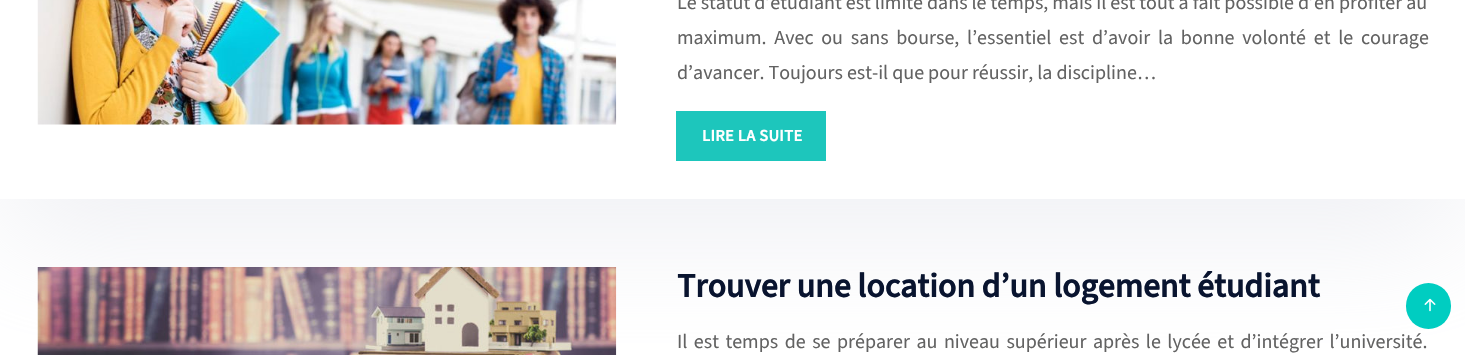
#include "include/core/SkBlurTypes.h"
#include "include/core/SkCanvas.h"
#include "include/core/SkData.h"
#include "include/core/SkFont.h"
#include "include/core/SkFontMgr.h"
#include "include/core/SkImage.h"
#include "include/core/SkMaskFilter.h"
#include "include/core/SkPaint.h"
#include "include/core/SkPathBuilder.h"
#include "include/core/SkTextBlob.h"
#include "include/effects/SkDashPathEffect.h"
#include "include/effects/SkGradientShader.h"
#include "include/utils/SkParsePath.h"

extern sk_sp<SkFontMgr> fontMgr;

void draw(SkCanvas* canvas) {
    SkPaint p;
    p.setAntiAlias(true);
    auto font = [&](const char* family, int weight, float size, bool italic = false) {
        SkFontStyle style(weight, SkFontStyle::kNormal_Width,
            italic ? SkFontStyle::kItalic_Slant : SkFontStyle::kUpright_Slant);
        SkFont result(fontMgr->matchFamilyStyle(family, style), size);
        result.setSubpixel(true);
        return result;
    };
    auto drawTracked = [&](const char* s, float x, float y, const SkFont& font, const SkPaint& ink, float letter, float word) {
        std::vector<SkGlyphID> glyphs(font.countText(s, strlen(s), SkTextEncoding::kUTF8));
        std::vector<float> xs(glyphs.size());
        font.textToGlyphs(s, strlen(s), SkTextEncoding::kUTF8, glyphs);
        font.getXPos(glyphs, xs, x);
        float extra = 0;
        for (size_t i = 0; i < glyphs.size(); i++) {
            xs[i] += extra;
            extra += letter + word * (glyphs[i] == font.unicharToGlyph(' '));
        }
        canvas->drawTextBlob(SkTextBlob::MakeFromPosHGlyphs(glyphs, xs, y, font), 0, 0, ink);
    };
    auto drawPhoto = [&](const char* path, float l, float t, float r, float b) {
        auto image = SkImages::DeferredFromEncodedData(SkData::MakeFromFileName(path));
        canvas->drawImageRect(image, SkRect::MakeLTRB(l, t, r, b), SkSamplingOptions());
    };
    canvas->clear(0xFFFFFFFF);
    canvas->save();
    canvas->clipPath(SkPathBuilder(SkPathFillType::kEvenOdd).moveTo(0, 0).lineTo(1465, 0).lineTo(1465, 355).lineTo(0, 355).close().moveTo(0, -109).lineTo(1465, -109).lineTo(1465, 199).lineTo(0, 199).close().detach(), true);
    p.setColor(0x80DDE0E7);
    p.setMaskFilter(SkMaskFilter::MakeBlur(kNormal_SkBlurStyle, 62.5f));
    canvas->drawRect(SkRect::MakeLTRB(0, -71, 1465, 236), p);
    p.setMaskFilter(nullptr);
    canvas->restore();
    drawPhoto("media/1.png", 37, 0, 617, 125);
    auto font1 = font("Source Sans 3", 400, 20);
    p.setColor(0xFF626262);
    canvas->drawString("Le statut d’étudiant est limité dans le temps, mais il est tout à fait possible d’en profiter au", 677, 9, font1, p);
    drawTracked("maximum. Avec ou sans bourse, l’essentiel est d’avoir la bonne volonté et le courage", 677, 44, font1, p, 0, 3.75f);
    canvas->drawString("d’avancer. Toujours est-il que pour réussir, la discipline…", 677, 79, font1, p);
    p.setColor(0xFF1DC6BC);
    canvas->drawRect(SkRect::MakeLTRB(676, 111, 826, 161), p);
    auto font2 = font("Source Sans 3", 700, 16.25f);
    p.setColor(0xFFFFFFFF);
    drawTracked("LIRE LA SUITE", 702, 141, font2, p, 0.4f, 0);
    drawPhoto("media/2.png", 37, 267, 617, 355);
    auto font3 = font("Source Sans 3", 700, 33.75f);
    p.setColor(0xFF09142F);
    canvas->drawString("Trouver une location d’un logement étudiant", 677, 297, font3, p);
    p.setColor(0xFF626262);
    drawTracked("Il est temps de se préparer au niveau supérieur après le lycée et d’intégrer l’université.", 677, 348, font1, p, 0, 2.5f);
    p.setColor(0xFF00CDC1);
    canvas->drawRoundRect(SkRect::MakeLTRB(1406, 283, 1451, 329), 22.5f, 22.5f, p);
    drawPhoto("media/3.png", 1424, 298, 1436, 312);
}
